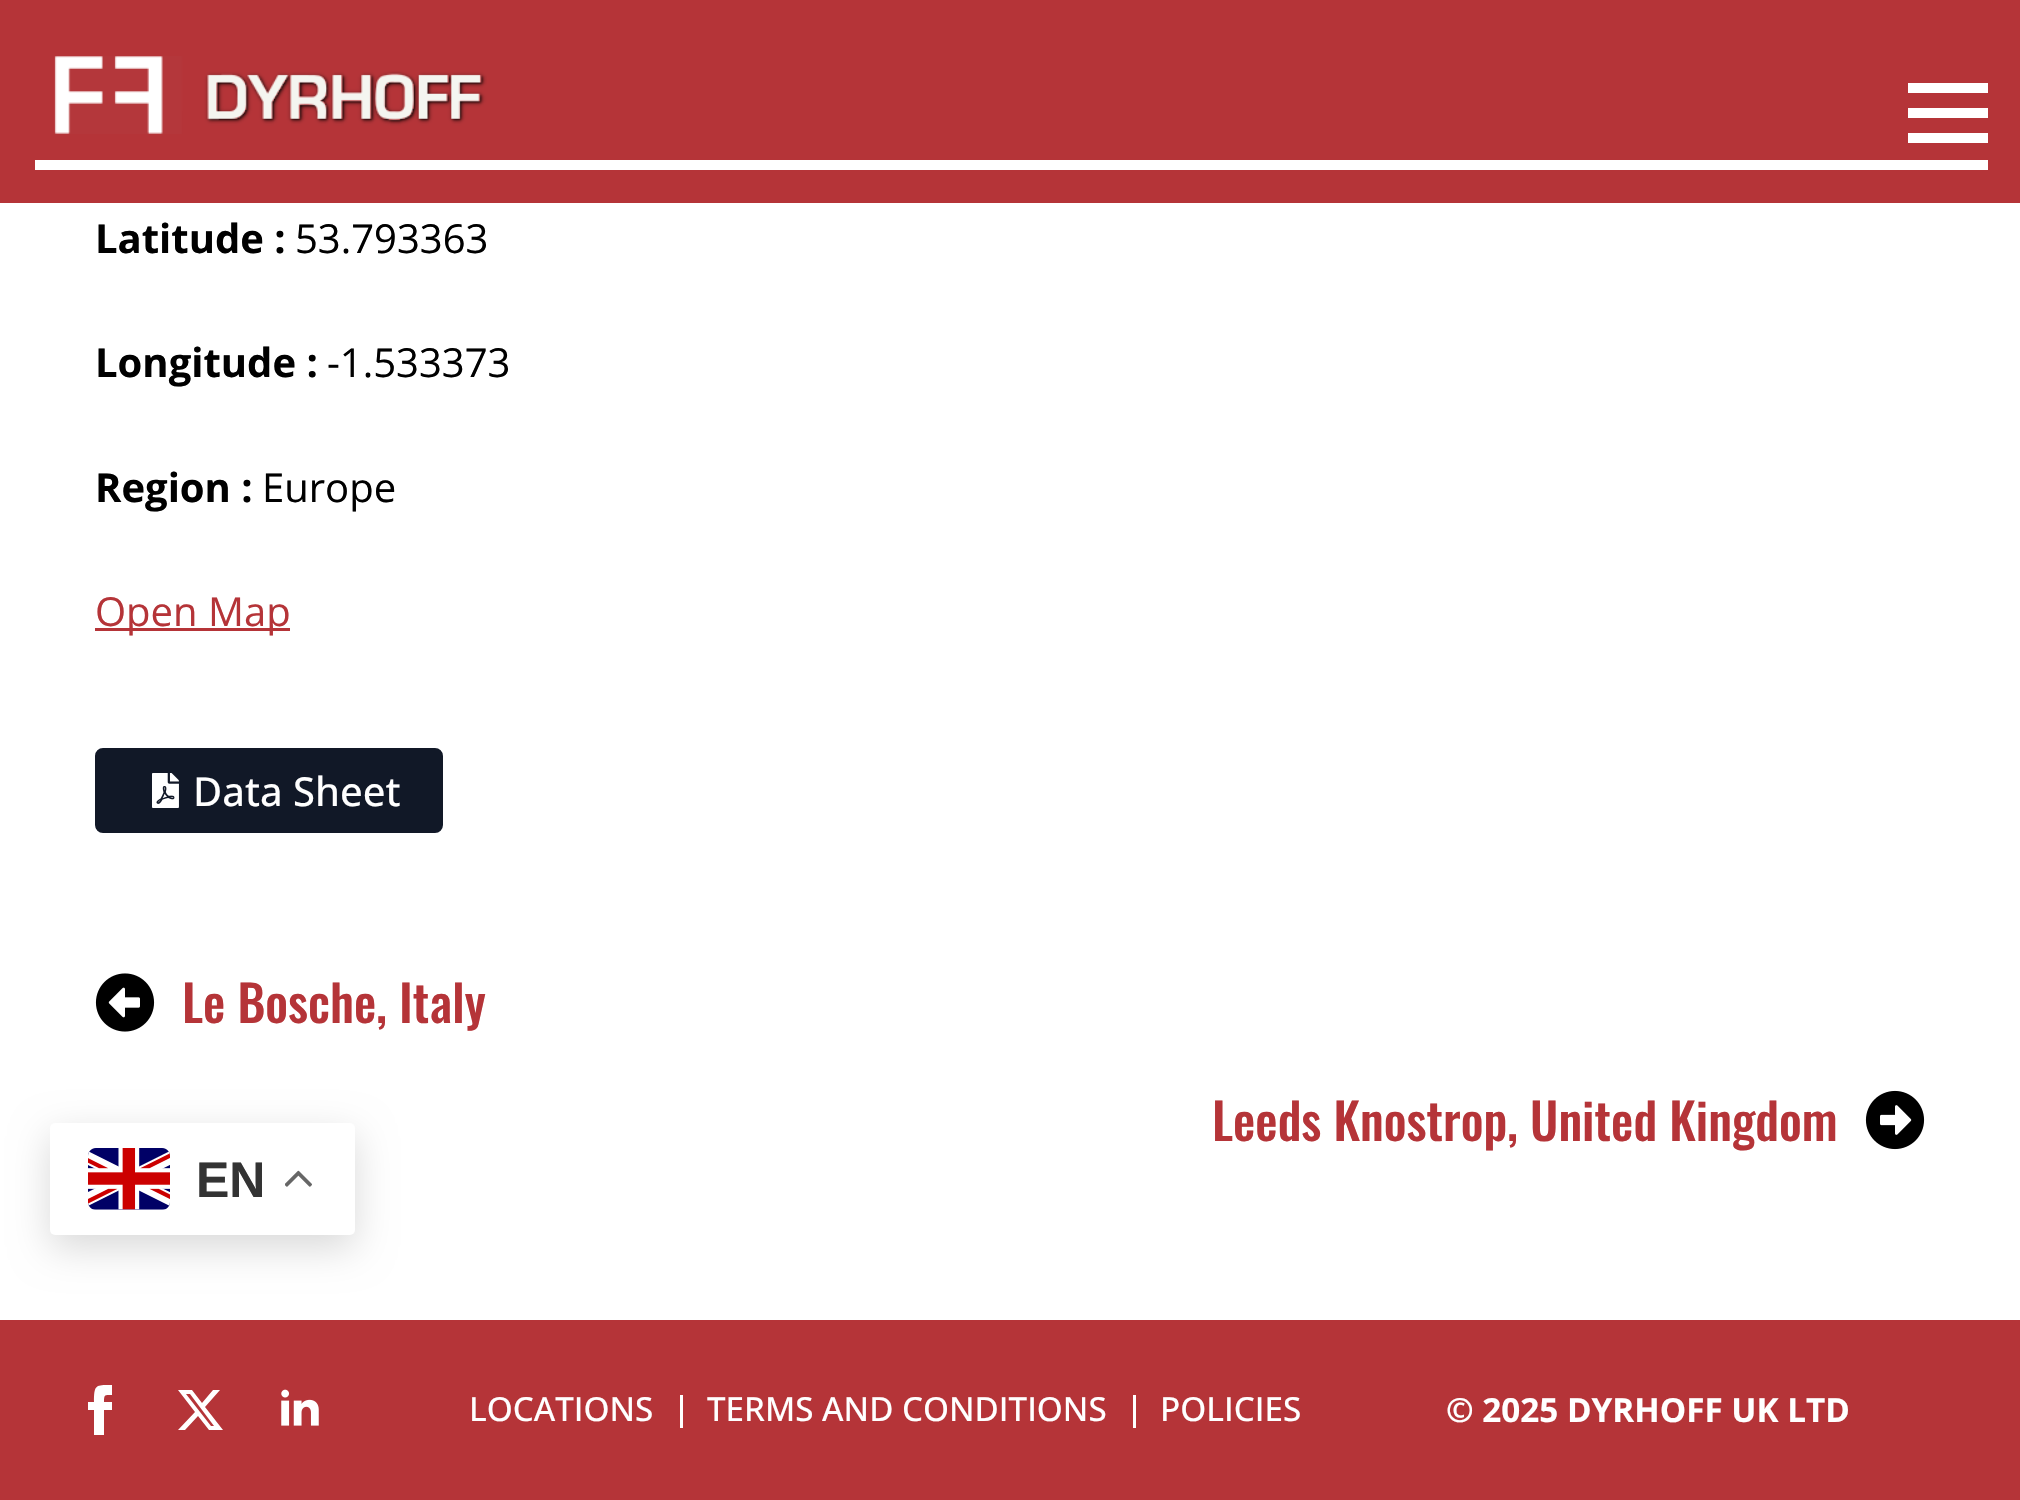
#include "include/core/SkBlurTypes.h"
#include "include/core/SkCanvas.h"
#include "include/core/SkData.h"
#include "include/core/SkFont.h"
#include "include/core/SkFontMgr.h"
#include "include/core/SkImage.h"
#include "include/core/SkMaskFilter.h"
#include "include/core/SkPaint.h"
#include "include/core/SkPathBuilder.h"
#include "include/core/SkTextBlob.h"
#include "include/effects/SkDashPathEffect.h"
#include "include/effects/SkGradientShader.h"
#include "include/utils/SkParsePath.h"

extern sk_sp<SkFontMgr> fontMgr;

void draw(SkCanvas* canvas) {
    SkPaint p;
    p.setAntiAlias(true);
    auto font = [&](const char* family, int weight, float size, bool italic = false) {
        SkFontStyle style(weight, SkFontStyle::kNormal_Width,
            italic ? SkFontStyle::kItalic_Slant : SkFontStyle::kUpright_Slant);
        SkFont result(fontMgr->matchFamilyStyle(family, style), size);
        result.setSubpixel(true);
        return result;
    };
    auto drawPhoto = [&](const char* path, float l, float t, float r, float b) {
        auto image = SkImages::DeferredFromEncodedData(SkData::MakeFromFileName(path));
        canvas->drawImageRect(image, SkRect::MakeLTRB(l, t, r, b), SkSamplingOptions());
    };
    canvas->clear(0xFFFFFFFF);
    p.setColor(0xFFB53438);
    canvas->drawRect(SkRect::MakeLTRB(0, 0, 2020, 203), p);
    p.setColor(0xFFFFFFFF);
    canvas->drawRect(SkRect::MakeLTRB(35, 160, 1988, 170), p);
    drawPhoto("media/1.png", 54, 56, 487, 134);
    {
        const struct { float l, t, r, b; SkColor color; } items[] = {
            {1908, 108, 1988, 118, 0xFFFFFFFF},
            {1908, 83, 1988, 93, 0xFFFFFFFF},
            {1908, 133, 1988, 143, 0xFFFFFFFF},
        };
        for (auto [l, t, r, b, color] : items) {
            p.setColor(color);
            canvas->drawRect(SkRect::MakeLTRB(l, t, r, b), p);
        }
    }
    auto font1 = font("Open Sans", 700, 40);
    p.setColor(0xFF000000);
    canvas->drawString("Latitude :", 95, 253, font1, p);
    auto font2 = font("Open Sans", 400, 40);
    canvas->drawString("53.793363", 295, 253, font2, p);
    canvas->drawString("Longitude :", 95, 377, font1, p);
    canvas->drawString("-1.533373", 327, 377, font2, p);
    canvas->drawString("Region :", 95, 502, font1, p);
    canvas->drawString("Europe", 262, 502, font2, p);
    p.setColor(0xFFB53438);
    canvas->drawRect(SkRect::MakeLTRB(95, 628, 290, 631), p);
    canvas->drawString("Open Map", 95, 626, font2, p);
    p.setColor(0xFF111827);
    canvas->drawRoundRect(SkRect::MakeLTRB(96.5f, 749.5f, 441.5f, 831.5f), 6.5f, 6.5f, p);
    p.setStyle(SkPaint::kStroke_Style);
    p.setStrokeWidth(3);
    canvas->drawRoundRect(SkRect::MakeLTRB(96.5f, 749.5f, 441.5f, 831.5f), 6.5f, 6.5f, p);
    drawPhoto("media/2.png", 152, 773, 179, 808);
    auto font3 = font("Open Sans", 500, 40);
    p.setStyle(SkPaint::kFill_Style);
    p.setColor(0xFFFFFFFF);
    canvas->drawString("Data Sheet", 193, 806, font3, p);
    drawPhoto("media/3.png", 95, 973, 155, 1032);
    auto font4 = font("Oswald", 500, 50);
    p.setColor(0xFFB53438);
    canvas->drawString("Le Bosche, Italy", 182, 1023, font4, p);
    canvas->drawString("Leeds Knostrop, United Kingdom", 1212, 1141, font4, p);
    drawPhoto("media/4.png", 1865, 1090, 1925, 1150);
    canvas->drawRect(SkRect::MakeLTRB(0, 1320, 2020, 1500), p);
    p.setColor(0x26000000);
    p.setMaskFilter(SkMaskFilter::MakeBlur(kNormal_SkBlurStyle, 19));
    canvas->drawRoundRect(SkRect::MakeLTRB(50, 1135, 355, 1248), 5, 5, p);
    p.setMaskFilter(nullptr);
    p.setColor(0xFFFFFFFF);
    canvas->drawRoundRect(SkRect::MakeLTRB(50, 1123, 355, 1235), 5, 5, p);
    drawPhoto("media/5.png", 88, 1148, 170, 1210);
    auto font5 = font("Liberation Sans", 700, 50);
    p.setColor(0xFF333333);
    canvas->drawString("EN", 196, 1197, font5, p);
    drawPhoto("media/6.png", 285, 1170, 312, 1187);
    p.setColor(0xFFFFFFFF);
    canvas->drawPath(SkPathBuilder().moveTo(94, 1402).lineTo(88, 1402).lineTo(88, 1410).lineTo(94, 1410).lineTo(94, 1435).lineTo(104, 1435).lineTo(104, 1410).lineTo(112, 1410).lineTo(112, 1402).lineTo(104, 1402).cubicTo(104, 1394, 105, 1395, 112, 1395).lineTo(112, 1385).cubicTo(96, 1385, 94, 1384, 94, 1402).close().detach(), p);
    canvas->drawPath(SkPathBuilder().moveTo(213, 1390).lineTo(220, 1390).lineTo(205, 1407).lineTo(223, 1430).lineTo(209, 1430).lineTo(198, 1416).lineTo(185, 1430).lineTo(178, 1430).lineTo(195, 1412).lineTo(178, 1390).lineTo(192, 1390).lineTo(202, 1403).close().moveTo(211, 1426).lineTo(214, 1426).lineTo(190, 1394).lineTo(186, 1394).close().detach(), p);
    drawPhoto("media/7.png", 281, 1389, 319, 1426);
    auto font6 = font("Open Sans", 500, 33.25f);
    canvas->drawString("LOCATIONS", 469, 1421, font6, p);
    canvas->drawRect(SkRect::MakeLTRB(680, 1395, 683, 1428), p);
    canvas->drawString("TERMS AND CONDITIONS", 707, 1421, font6, p);
    canvas->drawRect(SkRect::MakeLTRB(1133, 1395, 1136, 1428), p);
    canvas->drawString("POLICIES", 1160, 1421, font6, p);
    auto font7 = font("Open Sans", 700, 33.25f);
    canvas->drawString("© 2025 DYRHOFF UK LTD", 1446, 1422, font7, p);
}
